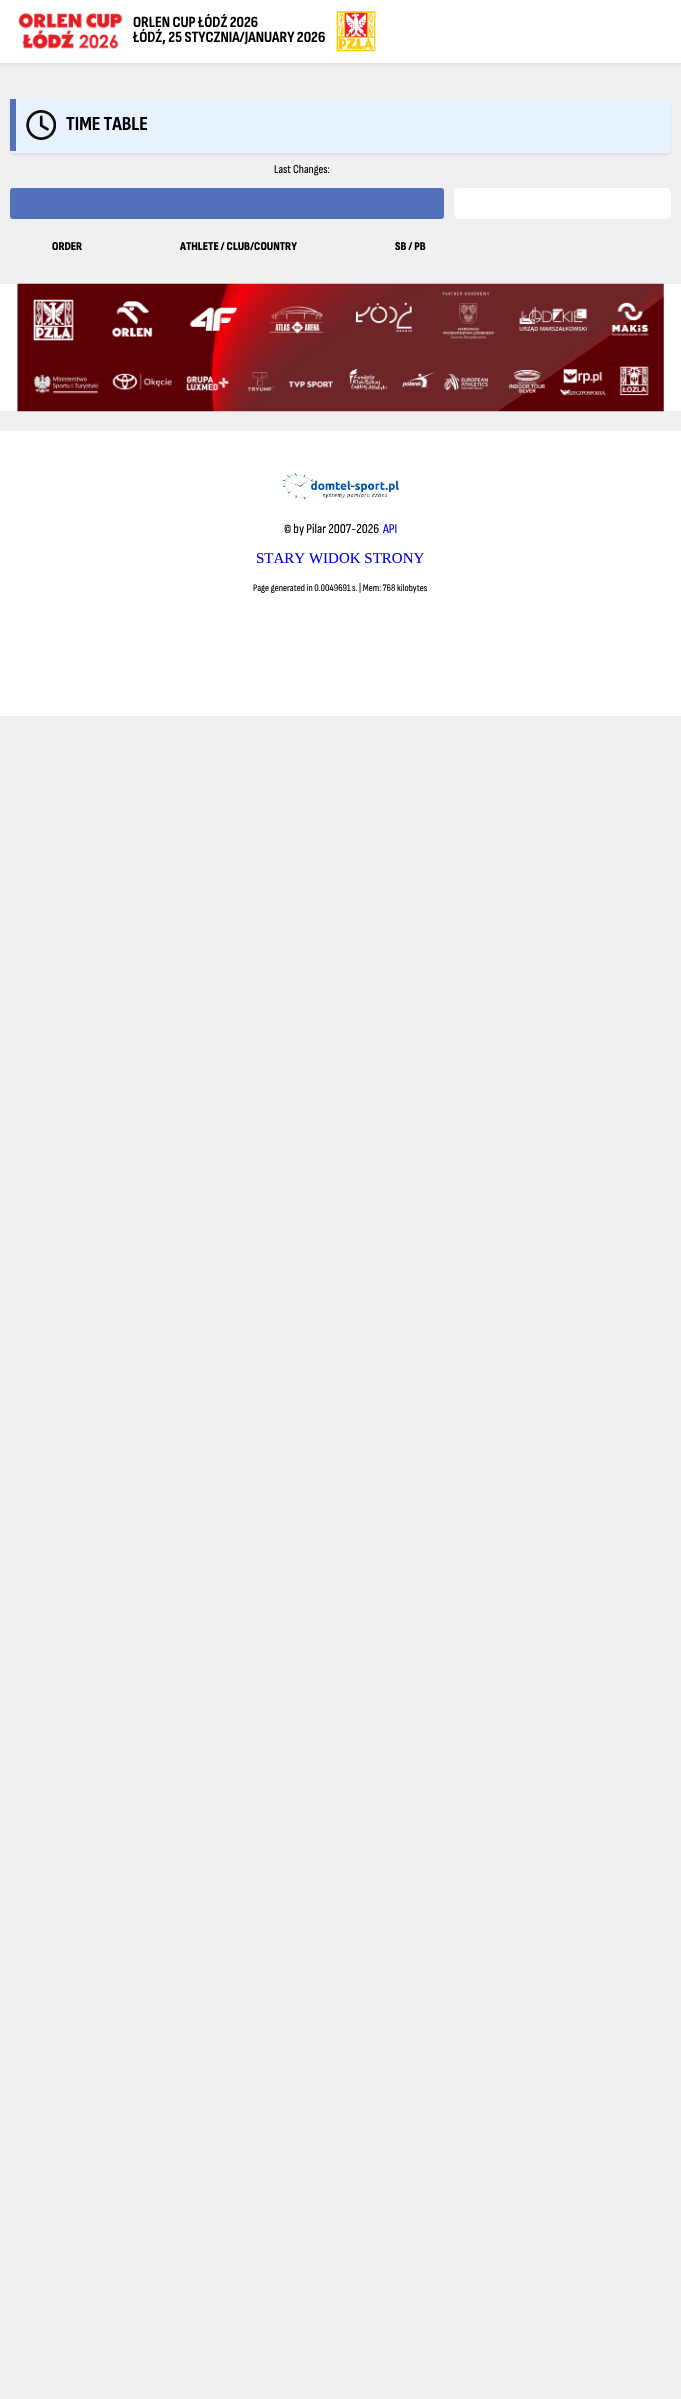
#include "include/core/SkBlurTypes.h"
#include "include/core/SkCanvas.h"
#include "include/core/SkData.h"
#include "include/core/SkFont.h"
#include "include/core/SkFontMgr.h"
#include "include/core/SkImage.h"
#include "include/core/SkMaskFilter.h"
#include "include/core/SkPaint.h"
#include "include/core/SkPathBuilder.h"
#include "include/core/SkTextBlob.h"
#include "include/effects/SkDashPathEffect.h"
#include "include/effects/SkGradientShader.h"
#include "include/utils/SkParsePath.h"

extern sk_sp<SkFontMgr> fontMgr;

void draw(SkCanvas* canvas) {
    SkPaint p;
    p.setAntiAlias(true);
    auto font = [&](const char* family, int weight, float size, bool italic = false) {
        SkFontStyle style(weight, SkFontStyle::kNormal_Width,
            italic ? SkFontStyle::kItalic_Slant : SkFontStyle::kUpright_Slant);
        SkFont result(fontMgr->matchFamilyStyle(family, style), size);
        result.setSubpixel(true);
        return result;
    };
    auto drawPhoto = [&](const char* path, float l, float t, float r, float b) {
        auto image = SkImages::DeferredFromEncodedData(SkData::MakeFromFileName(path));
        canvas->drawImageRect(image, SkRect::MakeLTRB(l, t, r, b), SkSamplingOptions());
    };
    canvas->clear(0xFFF0F0F0);
    p.setColor(0x1A193052);
    p.setMaskFilter(SkMaskFilter::MakeBlur(kNormal_SkBlurStyle, 1.5f));
    canvas->drawRect(SkRect::MakeLTRB(0, 3, 681, 65), p);
    p.setMaskFilter(nullptr);
    p.setColor(0xFFFFFFFF);
    canvas->drawRect(SkRect::MakeLTRB(0, 0, 681, 63), p);
    drawPhoto("media/1.png", 18, 13, 123, 49);
    auto font1 = font("Sofia Sans Condensed", 700, 15.6f);
    p.setColor(0xFF000000);
    canvas->drawString("ORLEN CUP ŁÓDŹ 2026", 133, 27, font1, p);
    canvas->drawString("ŁÓDŹ, 25 STYCZNIA/JANUARY 2026", 133, 42, font1, p);
    drawPhoto("media/2.png", 336, 11, 376, 52);
    p.setColor(0x1A193052);
    p.setMaskFilter(SkMaskFilter::MakeBlur(kNormal_SkBlurStyle, 1.5f));
    canvas->drawRoundRect(SkRect::MakeLTRB(10, 100, 671, 155), 3, 3, p);
    p.setMaskFilter(nullptr);
    p.setColor(0xFFE8F2FF);
    canvas->drawRoundRect(SkRect::MakeLTRB(10, 98, 671, 153), 3, 3, p);
    p.setColor(0xFF5271BA);
    canvas->drawRect(SkRect::MakeLTRB(10, 99, 16, 151), p);
    drawPhoto("media/3.png", 26, 110, 56, 140);
    auto font2 = font("Sofia Sans Condensed", 700, 20);
    p.setColor(0xFF000000);
    canvas->drawString("TIME TABLE", 66, 130, font2, p);
    auto font3 = font("Sofia Sans Condensed", 400, 12);
    canvas->drawString("Last Changes:", 274, 173, font3, p);
    p.setColor(0xFF5271BA);
    canvas->drawRoundRect(SkRect::MakeLTRB(10, 188, 444, 219), 3, 3, p);
    p.setColor(0xFFFFFFFF);
    canvas->drawRoundRect(SkRect::MakeLTRB(454, 188, 671, 219), 5, 5, p);
    auto font4 = font("Sofia Sans Condensed", 800, 12);
    p.setColor(0xFF000000);
    {
        const struct { const char* s; float x, y; } items[] = {
            {"ORDER", 52, 250},
            {"ATHLETE / CLUB/COUNTRY", 180, 250},
            {"SB / PB", 395, 250},
        };
        for (auto [s, x, y] : items) {
            canvas->drawString(s, x, y, font4, p);
        }
    }
    p.setColor(0xFFFFFFFF);
    canvas->drawRect(SkRect::MakeLTRB(0, 284, 681, 411), p);
    drawPhoto("media/4.png", 17, 283, 664, 412);
    canvas->drawRect(SkRect::MakeLTRB(0, 431, 681, 716), p);
    drawPhoto("media/5.png", 282, 473, 399, 500);
    auto font5 = font("Sofia Sans Condensed", 400, 13.5f);
    p.setColor(0xFF000000);
    canvas->drawString("© by Pilar 2007-2026", 284, 533, font5, p);
    p.setColor(0xFF0000EE);
    canvas->drawString("API", 383, 533, font5, p);
    auto font6 = font("Liberation Serif", 400, 15);
    canvas->drawString("STARY WIDOK STRONY", 256, 563, font6, p);
    auto font7 = font("Sofia Sans Condensed", 400, 10);
    p.setColor(0xFF000000);
    canvas->drawString("Page generated in 0.0049691 s. | Mem: 768 kilobytes", 253, 591, font7, p);
}
